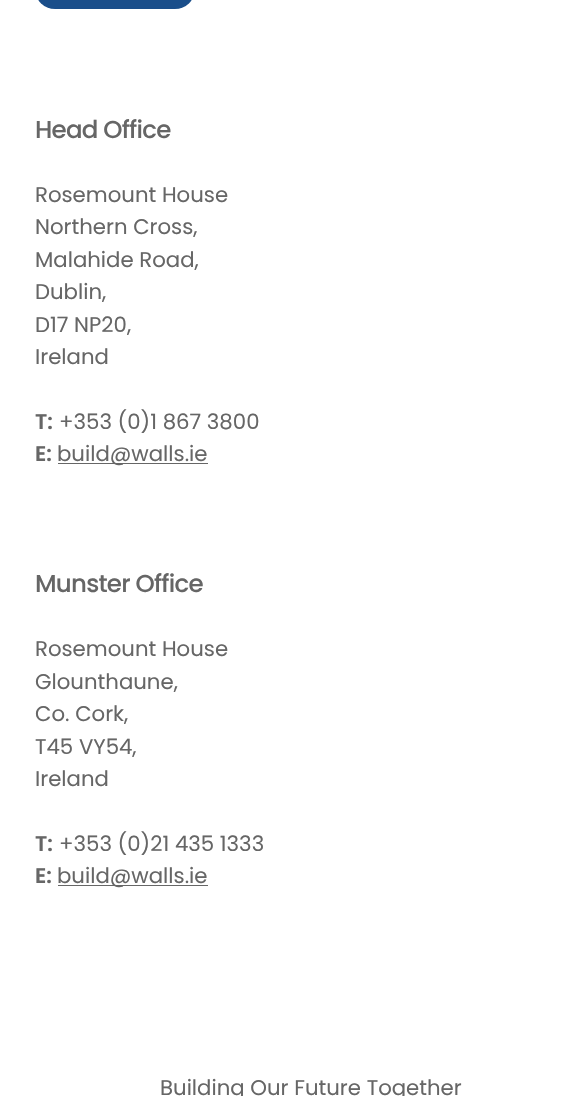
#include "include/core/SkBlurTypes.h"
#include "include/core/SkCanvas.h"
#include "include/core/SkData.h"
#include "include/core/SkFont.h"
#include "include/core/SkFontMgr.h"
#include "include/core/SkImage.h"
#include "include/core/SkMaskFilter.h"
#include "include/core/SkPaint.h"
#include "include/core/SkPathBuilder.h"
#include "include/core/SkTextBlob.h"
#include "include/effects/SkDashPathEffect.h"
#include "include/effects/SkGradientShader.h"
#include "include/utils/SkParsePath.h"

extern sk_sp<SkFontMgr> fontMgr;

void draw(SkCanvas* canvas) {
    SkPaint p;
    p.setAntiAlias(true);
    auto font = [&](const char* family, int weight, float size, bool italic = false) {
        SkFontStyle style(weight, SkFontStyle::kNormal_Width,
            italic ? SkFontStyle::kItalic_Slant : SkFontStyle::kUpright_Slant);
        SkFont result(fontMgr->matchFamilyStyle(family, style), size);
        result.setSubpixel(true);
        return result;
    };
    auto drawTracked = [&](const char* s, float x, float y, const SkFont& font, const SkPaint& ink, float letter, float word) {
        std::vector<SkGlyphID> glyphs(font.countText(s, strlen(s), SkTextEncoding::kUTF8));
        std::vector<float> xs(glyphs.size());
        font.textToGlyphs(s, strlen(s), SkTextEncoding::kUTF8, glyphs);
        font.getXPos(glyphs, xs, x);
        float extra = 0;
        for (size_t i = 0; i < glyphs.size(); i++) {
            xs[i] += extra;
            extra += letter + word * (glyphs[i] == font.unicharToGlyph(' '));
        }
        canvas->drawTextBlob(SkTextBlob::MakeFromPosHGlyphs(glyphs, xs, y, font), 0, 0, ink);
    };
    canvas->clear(0xFFFFFFFF);
    p.setColor(0xFF1A4E8A);
    canvas->drawRoundRect(SkRect::MakeLTRB(35, -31, 195, 9), 30.5f, 30.5f, p);
    auto font1 = font("Poppins", 500, 24.5f);
    p.setColor(0xFF666666);
    drawTracked("Head Office", 35, 138, font1, p, -0.75f, 0);
    auto font2 = font("Poppins", 400, 21.25f);
    {
        const struct { const char* s; float x, y; } items[] = {
            {"Rosemount House", 35, 202},
            {"Northern Cross,", 35, 234},
            {"Malahide Road,", 35, 267},
            {"Dublin,", 35, 299},
            {"D17 NP20,", 35, 332},
            {"Ireland", 35, 364},
        };
        for (auto [s, x, y] : items) {
            canvas->drawString(s, x, y, font2, p);
        }
    }
    auto font3 = font("Poppins", 600, 21.25f);
    canvas->drawString("T:", 35, 429, font3, p);
    canvas->drawString("+353 (0)1 867 3800", 59, 429, font2, p);
    canvas->drawString("E:", 35, 461, font3, p);
    canvas->drawRect(SkRect::MakeLTRB(58, 463, 208, 464), p);
    canvas->drawString("build@walls.ie", 57, 461, font2, p);
    drawTracked("Munster Office", 35, 592, font1, p, -0.75f, 0);
    {
        const struct { const char* s; float x, y; } items[] = {
            {"Rosemount House", 35, 656},
            {"Glounthaune,", 35, 689},
            {"Co. Cork,", 35, 721},
            {"T45 VY54,", 35, 754},
            {"Ireland", 35, 786},
        };
        for (auto [s, x, y] : items) {
            canvas->drawString(s, x, y, font2, p);
        }
    }
    canvas->drawString("T:", 35, 851, font3, p);
    canvas->drawString("+353 (0)21 435 1333", 59, 851, font2, p);
    canvas->drawString("E:", 35, 883, font3, p);
    canvas->drawRect(SkRect::MakeLTRB(58, 885, 208, 886), p);
    canvas->drawString("build@walls.ie", 57, 883, font2, p);
    canvas->drawString("Building Our Future Together", 160, 1095, font2, p);
}
